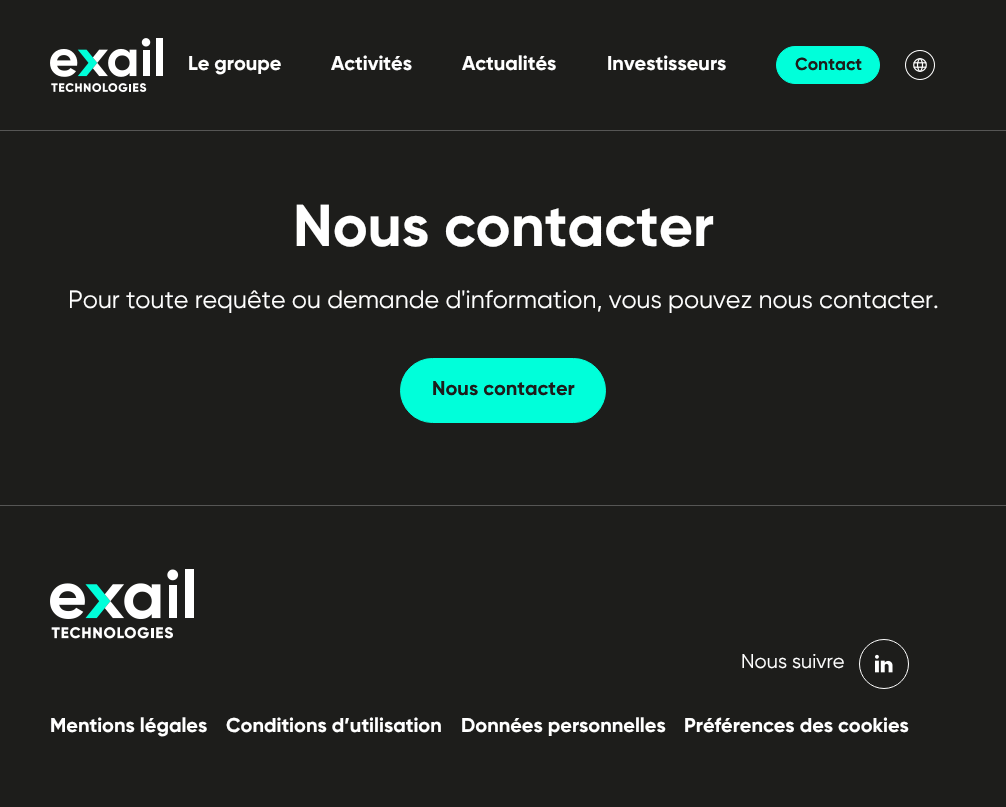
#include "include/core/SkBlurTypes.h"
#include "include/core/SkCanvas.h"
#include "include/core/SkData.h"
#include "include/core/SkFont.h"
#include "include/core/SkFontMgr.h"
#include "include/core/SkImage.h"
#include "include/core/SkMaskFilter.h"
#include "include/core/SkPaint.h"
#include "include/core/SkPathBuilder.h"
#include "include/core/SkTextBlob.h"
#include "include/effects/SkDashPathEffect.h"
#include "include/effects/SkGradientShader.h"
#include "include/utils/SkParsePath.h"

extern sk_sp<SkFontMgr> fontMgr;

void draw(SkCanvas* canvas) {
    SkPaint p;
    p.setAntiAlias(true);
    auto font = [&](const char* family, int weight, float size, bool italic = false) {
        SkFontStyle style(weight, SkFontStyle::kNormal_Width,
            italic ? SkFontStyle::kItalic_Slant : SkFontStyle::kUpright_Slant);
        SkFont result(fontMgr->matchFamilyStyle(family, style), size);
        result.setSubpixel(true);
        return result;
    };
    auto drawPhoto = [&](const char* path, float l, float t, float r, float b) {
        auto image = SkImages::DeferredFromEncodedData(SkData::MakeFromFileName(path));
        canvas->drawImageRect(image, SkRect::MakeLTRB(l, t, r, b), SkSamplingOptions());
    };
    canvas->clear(0xFF1D1D1B);
    p.setColor(0xFF565655);
    canvas->drawRect(SkRect::MakeLTRB(0, 130, 1006, 131), p);
    drawPhoto("media/1.png", 50, 38, 163, 92);
    auto font1 = font("Gilroy", 700, 20);
    p.setColor(0xFFFFFFFF);
    {
        const struct { const char* s; float x, y; } items[] = {
            {"Le groupe", 188, 70},
            {"Activités", 331, 70},
            {"Actualités", 462, 70},
            {"Investisseurs", 607, 70},
        };
        for (auto [s, x, y] : items) {
            canvas->drawString(s, x, y, font1, p);
        }
    }
    p.setColor(0xFF00FFDA);
    canvas->drawRoundRect(SkRect::MakeLTRB(776.5f, 46.5f, 879.5f, 83.5f), 18.5f, 18.5f, p);
    p.setStyle(SkPaint::kStroke_Style);
    p.setStrokeWidth(1);
    canvas->drawRoundRect(SkRect::MakeLTRB(776.5f, 46.5f, 879.5f, 83.5f), 18.5f, 18.5f, p);
    auto font2 = font("Gilroy", 700, 17.5f);
    p.setStyle(SkPaint::kFill_Style);
    p.setColor(0xFF1D1D1B);
    canvas->drawString("Contact", 795, 70, font2, p);
    drawPhoto("media/2.png", 905, 50, 935, 80);
    auto font3 = font("Gilroy", 700, 59);
    p.setColor(0xFFFFFFFF);
    canvas->drawString("Nous contacter", 293, 246, font3, p);
    auto font4 = font("Gilroy", 400, 25);
    canvas->drawString("Pour toute requête ou demande d'information, vous pouvez nous contacter.", 68, 308, font4, p);
    p.setColor(0xFF00FFDA);
    canvas->drawRoundRect(SkRect::MakeLTRB(400.5f, 358.5f, 605.5f, 422.5f), 32, 32, p);
    p.setStyle(SkPaint::kStroke_Style);
    canvas->drawRoundRect(SkRect::MakeLTRB(400.5f, 358.5f, 605.5f, 422.5f), 32, 32, p);
    p.setStyle(SkPaint::kFill_Style);
    p.setColor(0xFF1D1D1B);
    canvas->drawString("Nous contacter", 432, 395, font1, p);
    p.setColor(0xFF565655);
    canvas->drawRect(SkRect::MakeLTRB(0, 505, 1006, 506), p);
    drawPhoto("media/3.png", 50, 569, 194, 639);
    auto font5 = font("Gilroy", 400, 20);
    p.setColor(0xFFFFFFFF);
    canvas->drawString("Nous suivre", 741, 668, font5, p);
    p.setStyle(SkPaint::kStroke_Style);
    canvas->drawCircle(884, 664, 24.5f, p);
    drawPhoto("media/4.png", 875, 654, 893, 673);
    p.setStyle(SkPaint::kFill_Style);
    {
        const struct { const char* s; float x, y; } items[] = {
            {"Mentions légales", 50, 732},
            {"Conditions d’utilisation", 226, 732},
            {"Données personnelles", 461, 732},
            {"Préférences des cookies", 684, 732},
        };
        for (auto [s, x, y] : items) {
            canvas->drawString(s, x, y, font1, p);
        }
    }
}
